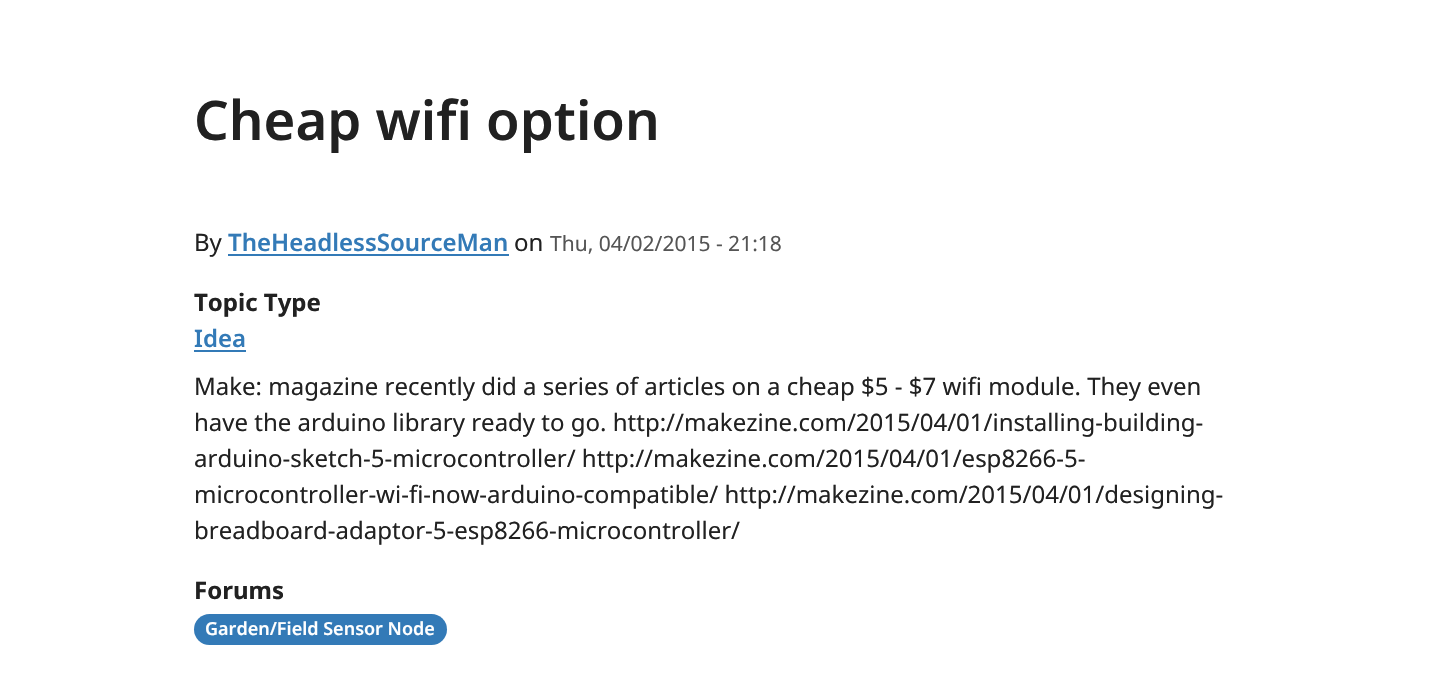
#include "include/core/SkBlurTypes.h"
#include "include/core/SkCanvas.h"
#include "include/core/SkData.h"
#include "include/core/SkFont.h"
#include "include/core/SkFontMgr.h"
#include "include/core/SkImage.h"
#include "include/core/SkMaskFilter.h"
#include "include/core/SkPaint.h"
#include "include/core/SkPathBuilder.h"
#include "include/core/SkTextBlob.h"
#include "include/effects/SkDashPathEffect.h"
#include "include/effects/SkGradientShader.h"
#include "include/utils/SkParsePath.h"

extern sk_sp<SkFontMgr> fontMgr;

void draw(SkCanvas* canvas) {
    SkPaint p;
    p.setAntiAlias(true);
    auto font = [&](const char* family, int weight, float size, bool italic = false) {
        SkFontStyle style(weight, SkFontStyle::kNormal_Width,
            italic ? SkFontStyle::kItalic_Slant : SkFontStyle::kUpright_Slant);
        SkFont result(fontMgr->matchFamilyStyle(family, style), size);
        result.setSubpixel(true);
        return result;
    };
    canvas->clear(0xFFFFFFFF);
    auto font1 = font("Noto Sans", 600, 54.5f);
    p.setColor(0xFF212121);
    canvas->drawString("Cheap wifi option", 194, 140, font1, p);
    auto font2 = font("Noto Sans", 400, 24);
    canvas->drawString("By", 194, 251, font2, p);
    auto font3 = font("Noto Sans", 600, 24);
    p.setColor(0xFF337AB7);
    canvas->drawString("TheHeadlessSourceMan", 228, 251, font3, p);
    canvas->drawRect(SkRect::MakeLTRB(228, 254, 509, 256), p);
    p.setColor(0xFF212121);
    canvas->drawString("on", 514, 251, font2, p);
    auto font4 = font("Noto Sans", 400, 21);
    p.setColor(0xFF555555);
    canvas->drawString("Thu, 04/02/2015 - 21:18", 550, 251, font4, p);
    auto font5 = font("Noto Sans", 700, 24);
    p.setColor(0xFF212121);
    canvas->drawString("Topic Type", 194, 311, font5, p);
    p.setColor(0xFF337AB7);
    canvas->drawString("Idea", 194, 347, font3, p);
    canvas->drawRect(SkRect::MakeLTRB(194, 350, 246, 352), p);
    p.setColor(0xFF212121);
    {
        const struct { const char* s; float x, y; } items[] = {
            {"Make: magazine recently did a series of articles on a cheap $5 - $7 wifi module. They even", 194, 395},
            {"have the arduino library ready to go. http://makezine.com/2015/04/01/installing-building-", 194, 431},
            {"arduino-sketch-5-microcontroller/ http://makezine.com/2015/04/01/esp8266-5-", 194, 467},
            {"microcontroller-wi-fi-now-arduino-compatible/ http://makezine.com/2015/04/01/designing-", 194, 503},
            {"breadboard-adaptor-5-esp8266-microcontroller/", 194, 539},
        };
        for (auto [s, x, y] : items) {
            canvas->drawString(s, x, y, font2, p);
        }
    }
    canvas->drawString("Forums", 194, 599, font5, p);
    p.setColor(0xFF337AB7);
    canvas->drawRoundRect(SkRect::MakeLTRB(194, 614, 447, 645), 15.5f, 15.5f, p);
    auto font6 = font("Noto Sans", 600, 18);
    p.setColor(0xFFFFFFFF);
    canvas->drawString("Garden/Field Sensor Node", 205, 635, font6, p);
}
